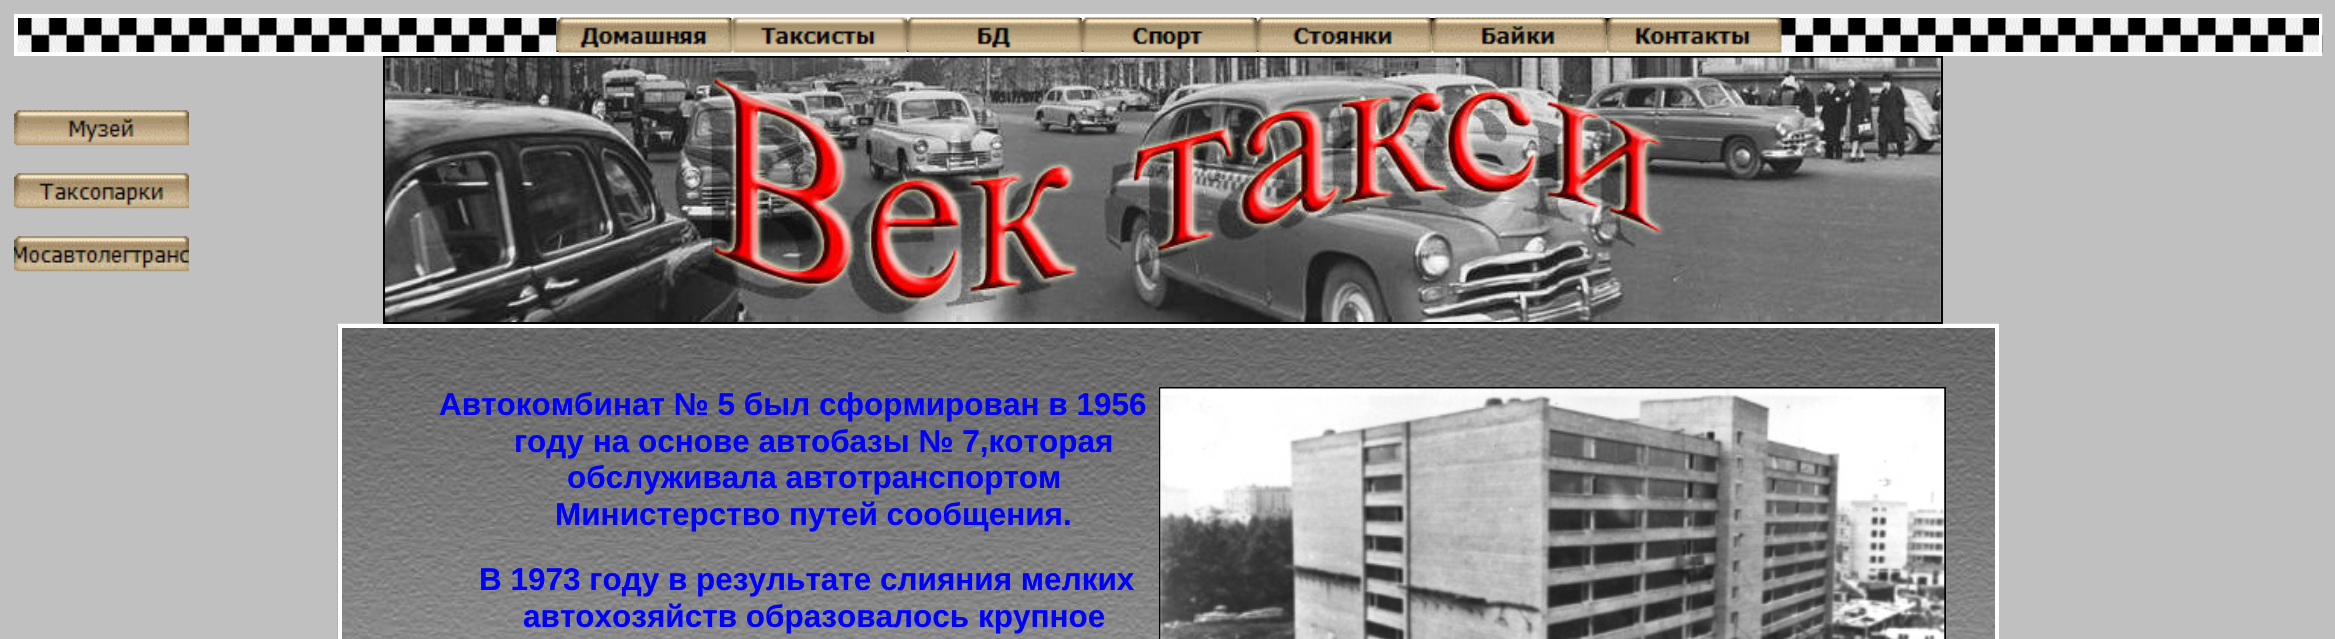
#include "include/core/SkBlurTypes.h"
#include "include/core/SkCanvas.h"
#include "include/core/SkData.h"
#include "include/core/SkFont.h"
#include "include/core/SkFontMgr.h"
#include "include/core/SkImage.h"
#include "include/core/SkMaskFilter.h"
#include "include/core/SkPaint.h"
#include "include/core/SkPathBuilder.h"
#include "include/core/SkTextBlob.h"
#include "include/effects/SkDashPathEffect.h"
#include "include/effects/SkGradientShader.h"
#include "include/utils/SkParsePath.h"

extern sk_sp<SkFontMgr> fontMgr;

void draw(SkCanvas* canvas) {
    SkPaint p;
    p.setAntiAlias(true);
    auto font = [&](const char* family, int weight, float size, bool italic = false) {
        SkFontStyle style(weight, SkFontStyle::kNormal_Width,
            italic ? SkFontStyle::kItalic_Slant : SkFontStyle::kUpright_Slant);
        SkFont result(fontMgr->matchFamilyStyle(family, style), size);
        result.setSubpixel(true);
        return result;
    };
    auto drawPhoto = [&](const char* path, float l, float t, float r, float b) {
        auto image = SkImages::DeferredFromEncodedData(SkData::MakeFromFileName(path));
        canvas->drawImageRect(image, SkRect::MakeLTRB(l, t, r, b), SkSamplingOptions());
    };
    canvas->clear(0xFFC0C0C0);
    drawPhoto("media/1.png", 18, 14, 2323, 56);
    p.setStyle(SkPaint::kStroke_Style);
    p.setStrokeWidth(2);
    p.setColor(0xFFFFFFFF);
    canvas->drawRect(SkRect::MakeLTRB(15, 15, 2321, 55), p);
    canvas->drawRect(SkRect::MakeLTRB(17, 17, 2320, 53), p);
    drawPhoto("media/2.png", 556, 17, 732, 53);
    drawPhoto("media/3.png", 731, 17, 907, 53);
    drawPhoto("media/4.png", 906, 17, 1082, 53);
    drawPhoto("media/5.png", 1081, 17, 1257, 53);
    drawPhoto("media/6.png", 1256, 17, 1432, 53);
    drawPhoto("media/7.png", 1431, 17, 1607, 53);
    drawPhoto("media/8.png", 1606, 17, 1782, 53);
    drawPhoto("media/9.png", 14, 110, 189, 146);
    drawPhoto("media/10.png", 14, 173, 189, 209);
    drawPhoto("media/11.png", 14, 236, 189, 272);
    drawPhoto("media/13.png", 337, 323, 1999, 639);
    p.setColor(0xFF000000);
    canvas->drawRect(SkRect::MakeLTRB(384, 57, 1942, 323), p);
    drawPhoto("media/12.png", 385, 57, 1941, 322);
    p.setColor(0xFFFFFFFF);
    canvas->drawRect(SkRect::MakeLTRB(339, 325, 1998, 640), p);
    canvas->drawRect(SkRect::MakeLTRB(341, 327, 1996, 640), p);
    auto font1 = font("Liberation Sans", 700, 31.5f);
    p.setStyle(SkPaint::kFill_Style);
    p.setColor(0xFF0000FF);
    {
        const struct { const char* s; float x, y; } items[] = {
            {"Автокомбинат № 5 был сформирован в 1956", 439, 415},
            {"году на основе автобазы № 7,которая", 514, 452},
            {"обслуживала автотранспортом", 567, 488},
            {"Министерство путей сообщения.", 555, 525},
        };
        for (auto [s, x, y] : items) {
            canvas->drawString(s, x, y, font1, p);
        }
    }
    p.setStyle(SkPaint::kStroke_Style);
    p.setColor(0xFF000000);
    canvas->drawRect(SkRect::MakeLTRB(1160, 388, 1945, 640), p);
    drawPhoto("media/14.png", 1160, 388, 1945, 639);
    p.setStyle(SkPaint::kFill_Style);
    p.setColor(0xFF0000FF);
    canvas->drawString("В 1973 году в результате слияния мелких", 479, 590, font1, p);
    canvas->drawString("автохозяйств образовалось крупное", 523, 627, font1, p);
}
